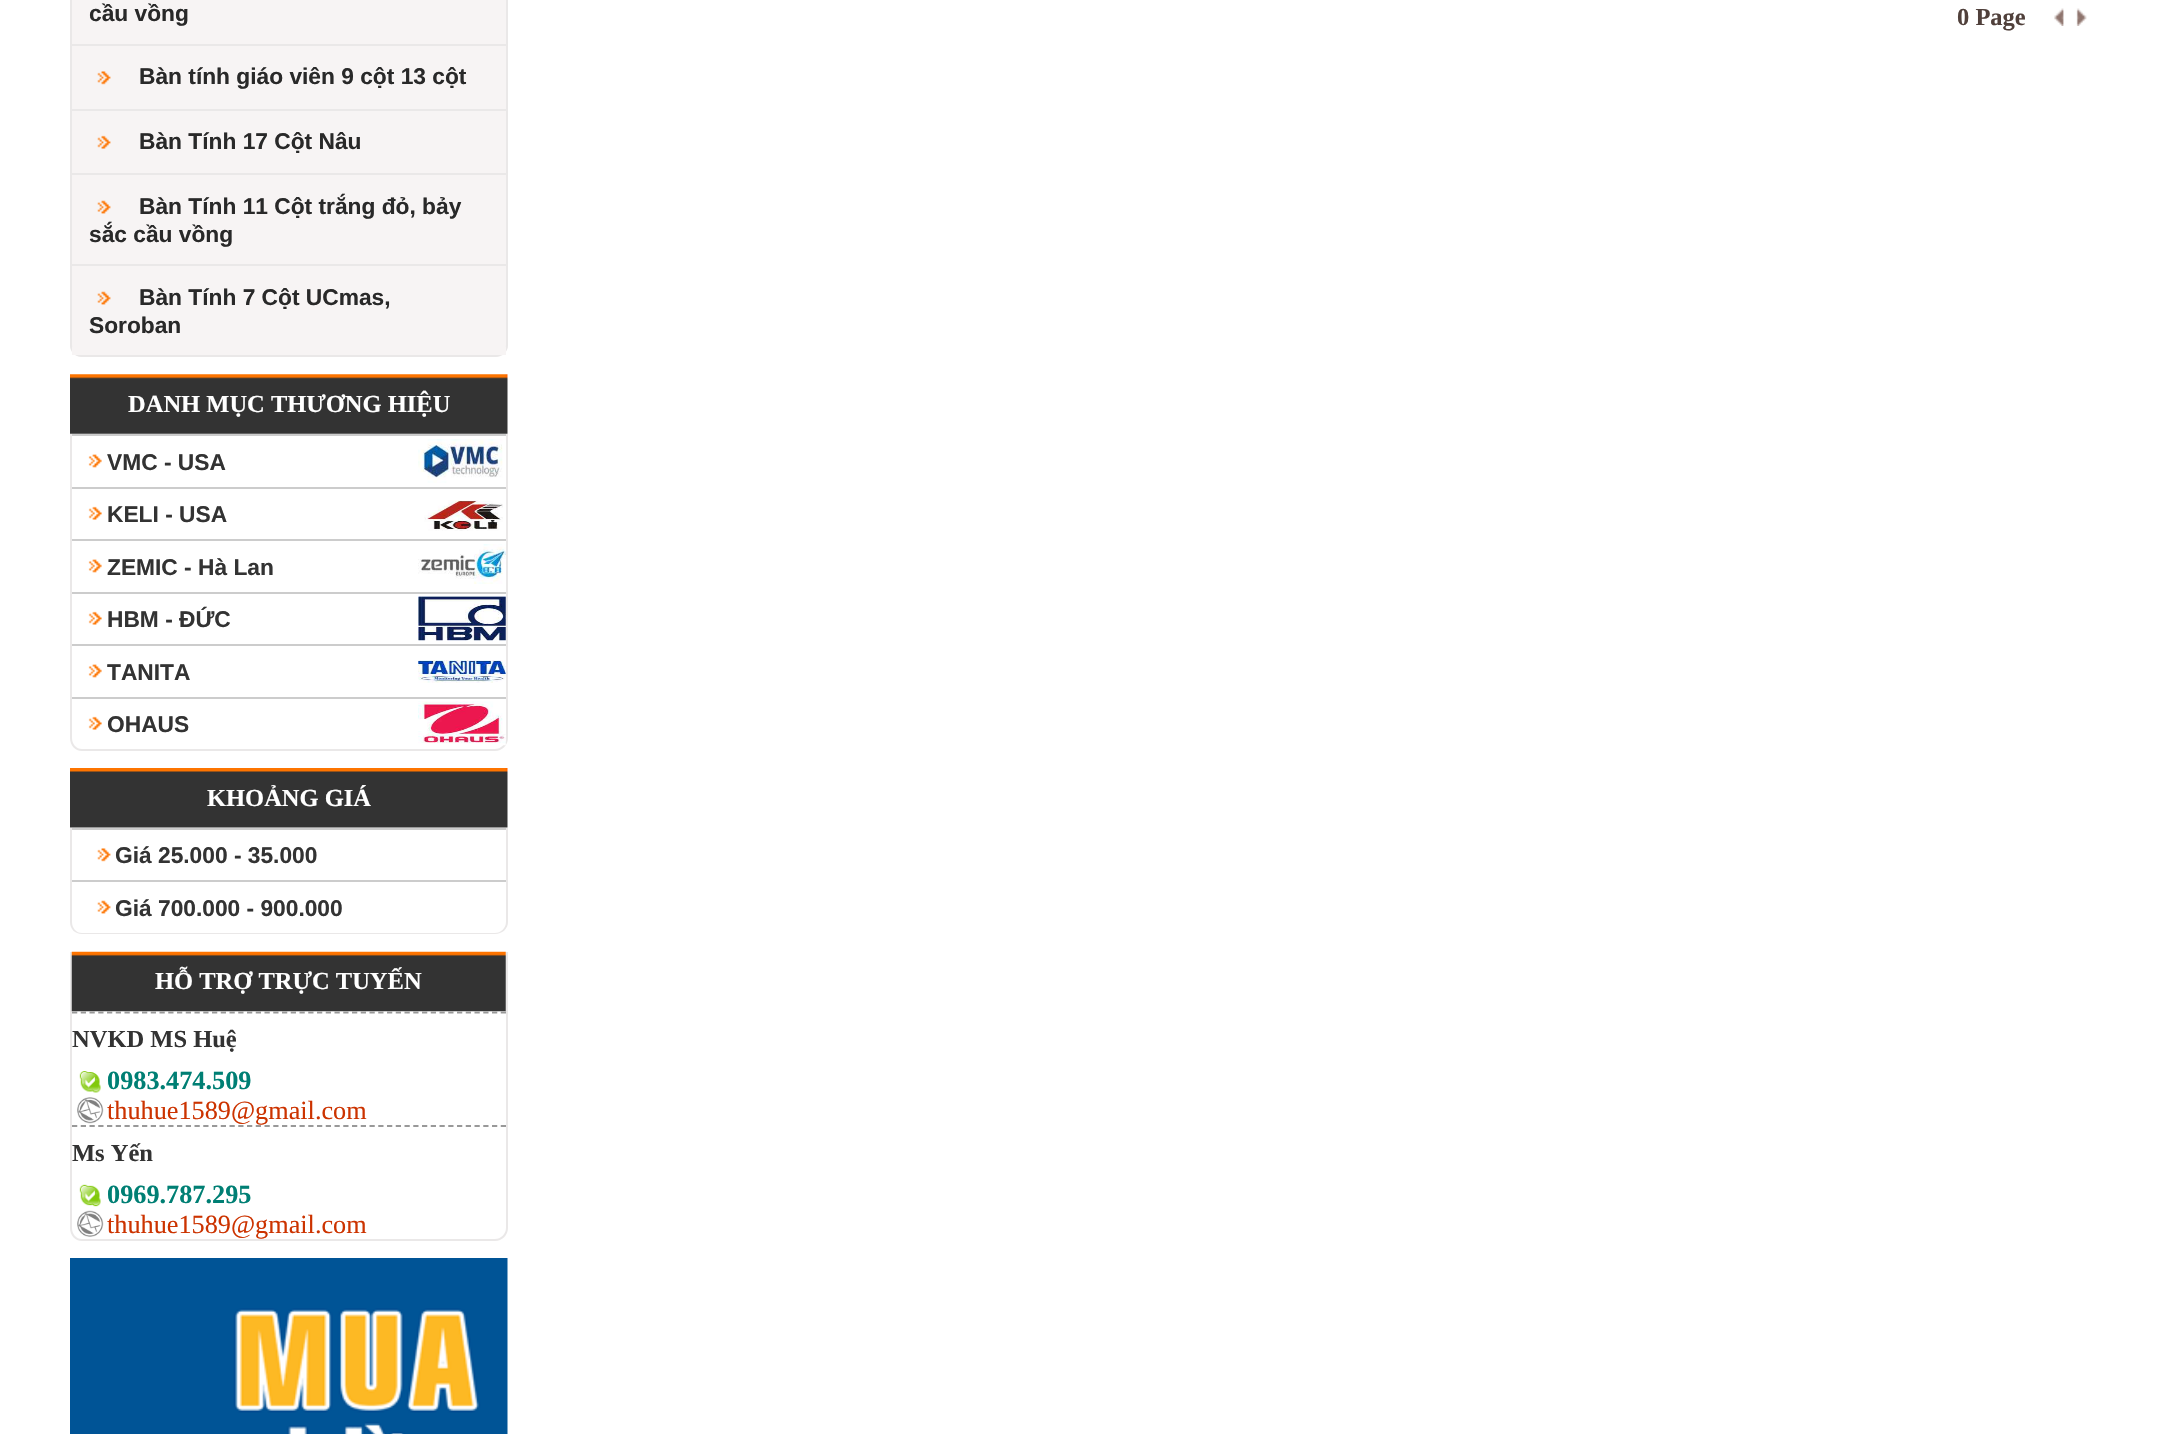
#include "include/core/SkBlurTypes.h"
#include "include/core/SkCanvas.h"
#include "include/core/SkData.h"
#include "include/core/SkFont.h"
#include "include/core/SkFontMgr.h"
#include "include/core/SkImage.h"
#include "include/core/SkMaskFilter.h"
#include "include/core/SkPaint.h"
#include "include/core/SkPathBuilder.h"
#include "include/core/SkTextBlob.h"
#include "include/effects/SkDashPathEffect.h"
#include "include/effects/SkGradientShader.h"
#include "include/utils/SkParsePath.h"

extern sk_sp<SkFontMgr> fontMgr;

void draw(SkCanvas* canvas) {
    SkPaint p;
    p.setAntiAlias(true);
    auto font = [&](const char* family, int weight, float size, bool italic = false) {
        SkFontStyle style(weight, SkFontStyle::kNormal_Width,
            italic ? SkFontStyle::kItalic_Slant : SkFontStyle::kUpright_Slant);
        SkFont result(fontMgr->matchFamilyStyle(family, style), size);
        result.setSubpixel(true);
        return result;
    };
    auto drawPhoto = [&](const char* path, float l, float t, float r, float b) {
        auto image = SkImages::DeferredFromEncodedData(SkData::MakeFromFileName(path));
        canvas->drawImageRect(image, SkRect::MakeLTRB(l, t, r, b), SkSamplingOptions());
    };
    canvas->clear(0xFFFFFFFF);
    p.setColor(0xFFF7F4F4);
    canvas->drawPath(SkPathBuilder().moveTo(70, -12).lineTo(508, -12).lineTo(508, 345).cubicTo(508, 351.5f, 502.5f, 357, 496, 357).lineTo(82, 357).cubicTo(75.5f, 357, 70, 351.5f, 70, 345).close().detach(), p);
    p.setColor(0xFFEAE8E8);
    canvas->drawPath(SkPathBuilder(SkPathFillType::kEvenOdd).moveTo(70, -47).lineTo(508, -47).lineTo(508, 345).cubicTo(508, 352, 502, 357, 495, 357).lineTo(82, 357).cubicTo(75, 357, 70, 352, 70, 345).close().moveTo(72, -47).lineTo(506, -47).lineTo(506, 345).cubicTo(506, 351, 501, 355, 495, 355).lineTo(82, 355).cubicTo(76, 355, 72, 351, 72, 345).close().detach(), p);
    auto font1 = font("Liberation Sans", 700, 22.75f);
    p.setColor(0xFF292929);
    canvas->drawString("cầu vồng", 89, 21, font1, p);
    p.setColor(0xFFEAE8E8);
    canvas->drawRect(SkRect::MakeLTRB(72, 44, 506, 46), p);
    drawPhoto("media/1.png", 97, 71, 111, 85);
    p.setColor(0xFF292929);
    canvas->drawString("Bàn tính giáo viên 9 cột 13 cột", 139, 84, font1, p);
    p.setColor(0xFFEAE8E8);
    canvas->drawRect(SkRect::MakeLTRB(72, 109, 506, 111), p);
    drawPhoto("media/2.png", 97, 135, 111, 149);
    p.setColor(0xFF292929);
    canvas->drawString("Bàn Tính 17 Cột Nâu", 139, 149, font1, p);
    p.setColor(0xFFEAE8E8);
    canvas->drawRect(SkRect::MakeLTRB(72, 173, 506, 175), p);
    drawPhoto("media/3.png", 97, 200, 111, 214);
    p.setColor(0xFF292929);
    canvas->drawString("Bàn Tính 11 Cột trắng đỏ, bảy", 139, 214, font1, p);
    canvas->drawString("sắc cầu vồng", 89, 242, font1, p);
    p.setColor(0xFFF7F4F4);
    canvas->drawRect(SkRect::MakeLTRB(72, 347, 506, 355), p);
    p.setColor(0xFFEAE8E8);
    canvas->drawRect(SkRect::MakeLTRB(72, 264, 506, 266), p);
    drawPhoto("media/3.png", 97, 291, 111, 305);
    p.setColor(0xFF292929);
    canvas->drawString("Bàn Tính 7 Cột UCmas,", 139, 305, font1, p);
    canvas->drawString("Soroban", 89, 333, font1, p);
    drawPhoto("media/4.png", 70, 374, 508, 434);
    auto font2 = font("Liberation Serif", 700, 24.5f);
    p.setColor(0xFFFFFFFF);
    canvas->drawString("DANH MỤC THƯƠNG HIỆU", 128, 412, font2, p);
    p.setColor(0xFFEAE8E8);
    canvas->drawPath(SkPathBuilder(SkPathFillType::kEvenOdd).moveTo(70, 434).lineTo(508, 434).lineTo(508, 738).cubicTo(508, 745, 502, 751, 495, 751).lineTo(82, 751).cubicTo(75, 751, 70, 745, 70, 738).close().moveTo(72, 434).lineTo(506, 434).lineTo(506, 738).cubicTo(506, 744, 501, 749, 495, 749).lineTo(82, 749).cubicTo(76, 749, 72, 744, 72, 738).close().detach(), p);
    p.setColor(0xFFCCCCCC);
    canvas->drawRect(SkRect::MakeLTRB(72, 434, 506, 436), p);
    drawPhoto("media/5.png", 88, 454, 102, 468);
    p.setColor(0xFF333333);
    canvas->drawString("VMC - USA", 107, 470, font1, p);
    drawPhoto("media/6.png", 418, 439, 503, 483);
    p.setColor(0xFFCCCCCC);
    canvas->drawRect(SkRect::MakeLTRB(72, 487, 506, 489), p);
    drawPhoto("media/7.png", 88, 506, 102, 520);
    p.setColor(0xFF333333);
    canvas->drawString("KELI - USA", 107, 522, font1, p);
    drawPhoto("media/8.png", 424, 500, 503, 531);
    p.setColor(0xFFCCCCCC);
    canvas->drawRect(SkRect::MakeLTRB(72, 539, 506, 541), p);
    drawPhoto("media/5.png", 88, 559, 102, 573);
    p.setColor(0xFF333333);
    canvas->drawString("ZEMIC - Hà Lan", 107, 575, font1, p);
    drawPhoto("media/9.png", 418, 544, 506, 584);
    p.setColor(0xFFCCCCCC);
    canvas->drawRect(SkRect::MakeLTRB(72, 592, 506, 594), p);
    drawPhoto("media/7.png", 88, 611, 102, 625);
    p.setColor(0xFF333333);
    canvas->drawString("HBM - ĐỨC", 107, 627, font1, p);
    drawPhoto("media/10.png", 418, 596, 506, 641);
    p.setColor(0xFFCCCCCC);
    canvas->drawRect(SkRect::MakeLTRB(72, 644, 506, 646), p);
    drawPhoto("media/5.png", 88, 664, 102, 678);
    p.setColor(0xFF333333);
    canvas->drawString("TANITA", 107, 680, font1, p);
    drawPhoto("media/11.png", 418, 660, 506, 683);
    p.setColor(0xFFCCCCCC);
    canvas->drawRect(SkRect::MakeLTRB(72, 697, 506, 699), p);
    drawPhoto("media/7.png", 88, 716, 102, 730);
    p.setColor(0xFF333333);
    canvas->drawString("OHAUS", 107, 732, font1, p);
    drawPhoto("media/12.png", 418, 701, 506, 746);
    drawPhoto("media/13.png", 70, 768, 508, 828);
    p.setColor(0xFFFFFFFF);
    canvas->drawString("KHOẢNG GIÁ", 207, 806, font2, p);
    p.setColor(0xFFEAE8E8);
    canvas->drawPath(SkPathBuilder(SkPathFillType::kEvenOdd).moveTo(70, 828).lineTo(508, 828).lineTo(508, 922).cubicTo(508, 929, 502, 934, 495, 934).lineTo(82, 934).cubicTo(75, 934, 70, 929, 70, 922).close().moveTo(72, 828).lineTo(506, 828).lineTo(506, 922).cubicTo(506, 928, 501, 933, 495, 933).lineTo(82, 933).cubicTo(76, 933, 72, 928, 72, 922).close().detach(), p);
    p.setColor(0xFFCCCCCC);
    canvas->drawRect(SkRect::MakeLTRB(72, 828, 506, 830), p);
    drawPhoto("media/14.png", 97, 848, 111, 862);
    p.setColor(0xFF333333);
    canvas->drawString("Giá 25.000 - 35.000", 115, 863, font1, p);
    p.setColor(0xFFCCCCCC);
    canvas->drawRect(SkRect::MakeLTRB(72, 880, 506, 882), p);
    drawPhoto("media/15.png", 97, 900, 111, 914);
    p.setColor(0xFF333333);
    canvas->drawString("Giá 700.000 - 900.000", 115, 916, font1, p);
    p.setColor(0xFFEAE8E8);
    canvas->drawPath(SkPathBuilder(SkPathFillType::kEvenOdd).moveTo(70, 952).lineTo(508, 952).lineTo(508, 1228).cubicTo(508, 1235, 502, 1241, 495, 1241).lineTo(82, 1241).cubicTo(75, 1241, 70, 1235, 70, 1228).close().moveTo(72, 952).lineTo(506, 952).lineTo(506, 1228).cubicTo(506, 1234, 501, 1239, 495, 1239).lineTo(82, 1239).cubicTo(76, 1239, 72, 1234, 72, 1228).close().detach(), p);
    drawPhoto("media/16.png", 71, 951, 506, 1012);
    p.setColor(0xFFFFFFFF);
    canvas->drawString("HỖ TRỢ TRỰC TUYẾN", 155, 989, font2, p);
    p.setStyle(SkPaint::kStroke_Style);
    p.setStrokeWidth(1.8f);
    p.setColor(0xFF999999);
    p.setPathEffect(SkDashPathEffect::Make({{5.25f, 3.5f}}, 0));
    canvas->drawPath(SkPathBuilder().moveTo(72, 1012.5f).lineTo(506, 1012.5f).detach(), p);
    p.setPathEffect(nullptr);
    p.setStyle(SkPaint::kFill_Style);
    p.setColor(0xFF333333);
    canvas->drawString("NVKD MS Huệ", 72, 1047, font2, p);
    drawPhoto("media/17.png", 79, 1071, 101, 1093);
    auto font3 = font("Liberation Serif", 700, 26.25f);
    p.setColor(0xFF007F74);
    canvas->drawString("0983.474.509", 107, 1089, font3, p);
    drawPhoto("media/18.png", 77, 1097, 104, 1124);
    auto font4 = font("Liberation Serif", 400, 26.25f);
    p.setColor(0xFFCC3300);
    canvas->drawString("thuhue1589@gmail.com", 107, 1119, font4, p);
    p.setStyle(SkPaint::kStroke_Style);
    p.setColor(0xFF999999);
    p.setPathEffect(SkDashPathEffect::Make({{5.25f, 3.5f}}, 0));
    canvas->drawPath(SkPathBuilder().moveTo(72, 1126).lineTo(506, 1126).detach(), p);
    p.setPathEffect(nullptr);
    p.setStyle(SkPaint::kFill_Style);
    p.setColor(0xFF333333);
    canvas->drawString("Ms Yến", 72, 1161, font2, p);
    drawPhoto("media/19.png", 79, 1184, 101, 1207);
    p.setColor(0xFF007F74);
    canvas->drawString("0969.787.295", 107, 1203, font3, p);
    drawPhoto("media/20.png", 77, 1210, 104, 1237);
    p.setColor(0xFFCC3300);
    canvas->drawString("thuhue1589@gmail.com", 107, 1233, font4, p);
    drawPhoto("media/21.png", 70, 1258, 508, 1434);
    p.setColor(0xFF50403B);
    canvas->drawString("0 Page", 1957, 25, font2, p);
    drawPhoto("media/22.png", 2054, 8, 2064, 26);
    drawPhoto("media/23.png", 2076, 8, 2087, 26);
}
